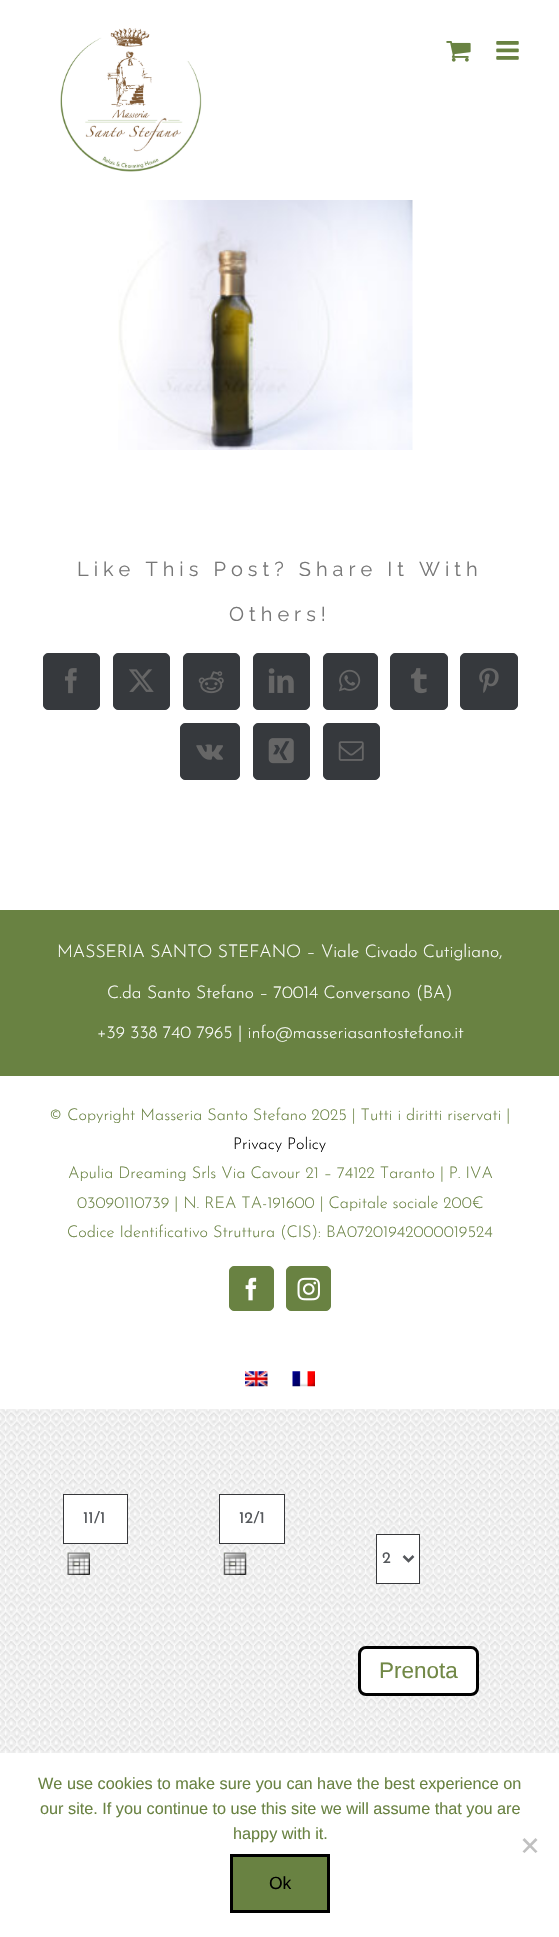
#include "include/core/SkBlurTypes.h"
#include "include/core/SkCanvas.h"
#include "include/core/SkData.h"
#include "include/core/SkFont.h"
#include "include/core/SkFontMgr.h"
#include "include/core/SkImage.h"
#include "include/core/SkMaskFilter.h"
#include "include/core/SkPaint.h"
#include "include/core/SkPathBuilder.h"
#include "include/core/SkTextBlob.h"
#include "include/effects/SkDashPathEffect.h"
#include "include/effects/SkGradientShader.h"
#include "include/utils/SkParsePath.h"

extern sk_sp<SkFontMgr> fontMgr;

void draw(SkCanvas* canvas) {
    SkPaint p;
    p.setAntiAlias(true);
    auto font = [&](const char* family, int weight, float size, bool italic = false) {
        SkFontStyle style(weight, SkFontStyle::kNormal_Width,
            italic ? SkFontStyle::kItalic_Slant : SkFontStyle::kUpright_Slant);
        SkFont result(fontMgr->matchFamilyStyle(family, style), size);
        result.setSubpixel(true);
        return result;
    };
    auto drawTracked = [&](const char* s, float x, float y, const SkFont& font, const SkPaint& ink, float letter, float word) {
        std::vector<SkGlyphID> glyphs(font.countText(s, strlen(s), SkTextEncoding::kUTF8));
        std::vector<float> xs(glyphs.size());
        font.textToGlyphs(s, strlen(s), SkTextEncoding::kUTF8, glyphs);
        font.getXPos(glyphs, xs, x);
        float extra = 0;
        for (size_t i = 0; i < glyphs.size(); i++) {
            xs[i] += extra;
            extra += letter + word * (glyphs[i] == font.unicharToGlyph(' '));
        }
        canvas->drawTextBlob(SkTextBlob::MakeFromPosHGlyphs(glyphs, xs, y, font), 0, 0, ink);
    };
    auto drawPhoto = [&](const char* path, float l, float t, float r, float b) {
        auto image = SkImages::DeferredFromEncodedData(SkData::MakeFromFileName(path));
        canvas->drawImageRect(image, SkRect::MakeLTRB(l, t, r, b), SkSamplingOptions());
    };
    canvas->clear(0xFFFFFFFF);
    drawPhoto("media/1.png", 0, 1409, 559, 1753);
    drawPhoto("media/2.png", 60, 28, 202, 172);
    drawPhoto("media/3.png", 446, 41, 471, 62);
    drawPhoto("media/4.png", 496, 41, 519, 60);
    drawPhoto("media/5.png", 118, 200, 413, 450);
    auto font1 = font("Raleway", 100, 20);
    p.setColor(0xFF777777);
    drawTracked("Like This Post? Share It With", 77, 576, font1, p, 5, 0);
    drawTracked("Others!", 229, 621, font1, p, 5, 0);
    p.setColor(0xFF36393D);
    canvas->drawRoundRect(SkRect::MakeLTRB(43.5f, 653.5f, 99.5f, 709.5f), 4.5f, 4.5f, p);
    p.setStyle(SkPaint::kStroke_Style);
    p.setStrokeWidth(1);
    canvas->drawRoundRect(SkRect::MakeLTRB(43.5f, 653.5f, 99.5f, 709.5f), 4.5f, 4.5f, p);
    drawPhoto("media/6.png", 65, 668, 77, 694);
    p.setStyle(SkPaint::kFill_Style);
    canvas->drawRoundRect(SkRect::MakeLTRB(113.5f, 653.5f, 169.5f, 709.5f), 4.5f, 4.5f, p);
    p.setStyle(SkPaint::kStroke_Style);
    canvas->drawRoundRect(SkRect::MakeLTRB(113.5f, 653.5f, 169.5f, 709.5f), 4.5f, 4.5f, p);
    drawPhoto("media/7.png", 129, 669, 154, 692);
    p.setStyle(SkPaint::kFill_Style);
    canvas->drawRoundRect(SkRect::MakeLTRB(183.5f, 653.5f, 239.5f, 709.5f), 4.5f, 4.5f, p);
    p.setStyle(SkPaint::kStroke_Style);
    canvas->drawRoundRect(SkRect::MakeLTRB(183.5f, 653.5f, 239.5f, 709.5f), 4.5f, 4.5f, p);
    drawPhoto("media/8.png", 198, 671, 224, 694);
    p.setStyle(SkPaint::kFill_Style);
    canvas->drawRoundRect(SkRect::MakeLTRB(253.5f, 653.5f, 309.5f, 709.5f), 4.5f, 4.5f, p);
    p.setStyle(SkPaint::kStroke_Style);
    canvas->drawRoundRect(SkRect::MakeLTRB(253.5f, 653.5f, 309.5f, 709.5f), 4.5f, 4.5f, p);
    drawPhoto("media/9.png", 268, 668, 294, 693);
    p.setStyle(SkPaint::kFill_Style);
    canvas->drawRoundRect(SkRect::MakeLTRB(323.5f, 653.5f, 377.5f, 709.5f), 4.5f, 4.5f, p);
    p.setStyle(SkPaint::kStroke_Style);
    canvas->drawRoundRect(SkRect::MakeLTRB(323.5f, 653.5f, 377.5f, 709.5f), 4.5f, 4.5f, p);
    drawPhoto("media/10.png", 339, 669, 361, 692);
    p.setStyle(SkPaint::kFill_Style);
    canvas->drawRoundRect(SkRect::MakeLTRB(390.5f, 653.5f, 447.5f, 709.5f), 4.5f, 4.5f, p);
    p.setStyle(SkPaint::kStroke_Style);
    canvas->drawRoundRect(SkRect::MakeLTRB(390.5f, 653.5f, 447.5f, 709.5f), 4.5f, 4.5f, p);
    drawPhoto("media/11.png", 411, 668, 427, 694);
    p.setStyle(SkPaint::kFill_Style);
    canvas->drawRoundRect(SkRect::MakeLTRB(460.5f, 653.5f, 517.5f, 709.5f), 4.5f, 4.5f, p);
    p.setStyle(SkPaint::kStroke_Style);
    canvas->drawRoundRect(SkRect::MakeLTRB(460.5f, 653.5f, 517.5f, 709.5f), 4.5f, 4.5f, p);
    drawPhoto("media/12.png", 479, 668, 499, 693);
    p.setStyle(SkPaint::kFill_Style);
    canvas->drawRoundRect(SkRect::MakeLTRB(180.5f, 723.5f, 239.5f, 779.5f), 4.5f, 4.5f, p);
    p.setStyle(SkPaint::kStroke_Style);
    canvas->drawRoundRect(SkRect::MakeLTRB(180.5f, 723.5f, 239.5f, 779.5f), 4.5f, 4.5f, p);
    drawPhoto("media/13.png", 196, 744, 223, 760);
    p.setStyle(SkPaint::kFill_Style);
    canvas->drawRoundRect(SkRect::MakeLTRB(253.5f, 723.5f, 309.5f, 779.5f), 4.5f, 4.5f, p);
    p.setStyle(SkPaint::kStroke_Style);
    canvas->drawRoundRect(SkRect::MakeLTRB(253.5f, 723.5f, 309.5f, 779.5f), 4.5f, 4.5f, p);
    drawPhoto("media/14.png", 268, 738, 294, 764);
    p.setStyle(SkPaint::kFill_Style);
    canvas->drawRoundRect(SkRect::MakeLTRB(323.5f, 723.5f, 379.5f, 779.5f), 4.5f, 4.5f, p);
    p.setStyle(SkPaint::kStroke_Style);
    canvas->drawRoundRect(SkRect::MakeLTRB(323.5f, 723.5f, 379.5f, 779.5f), 4.5f, 4.5f, p);
    drawPhoto("media/15.png", 338, 741, 364, 761);
    p.setStyle(SkPaint::kFill_Style);
    p.setColor(0xFF698242);
    canvas->drawRect(SkRect::MakeLTRB(0, 910, 559, 1076), p);
    auto font2 = font("Josefin Sans", 300, 17.5f);
    p.setColor(0xFFFFFFFF);
    {
        const struct { const char* s; float x, y; } items[] = {
            {"MASSERIA SANTO STEFANO – Viale Civado Cutigliano,", 57, 957},
            {"C.da Santo Stefano – 70014 Conversano (BA)", 107, 998},
            {"+39 338 740 7965 | info@masseriasantostefano.it", 97, 1038},
        };
        for (auto [s, x, y] : items) {
            canvas->drawString(s, x, y, font2, p);
        }
    }
    auto font3 = font("Josefin Sans", 300, 16.25f);
    p.setColor(0xFF698242);
    canvas->drawString("© Copyright Masseria Santo Stefano 2025 | Tutti i diritti riservati |", 49, 1120, font3, p);
    p.setColor(0xFF000000);
    canvas->drawString("Privacy Policy", 233, 1149, font3, p);
    p.setColor(0xFF698242);
    {
        const struct { const char* s; float x, y; } items[] = {
            {"Apulia Dreaming Srls Via Cavour 21 – 74122 Taranto | P. IVA", 68, 1178},
            {"03090110739 | N. REA TA-191600 | Capitale sociale 200€", 77, 1208},
            {"Codice Identificativo Struttura (CIS): BA07201942000019524", 67, 1237},
        };
        for (auto [s, x, y] : items) {
            canvas->drawString(s, x, y, font3, p);
        }
    }
    canvas->drawRoundRect(SkRect::MakeLTRB(229.5f, 1266.5f, 273.5f, 1310.5f), 4.5f, 4.5f, p);
    p.setStyle(SkPaint::kStroke_Style);
    canvas->drawRoundRect(SkRect::MakeLTRB(229.5f, 1266.5f, 273.5f, 1310.5f), 4.5f, 4.5f, p);
    drawPhoto("media/16.png", 245, 1277, 257, 1301);
    p.setStyle(SkPaint::kFill_Style);
    canvas->drawRoundRect(SkRect::MakeLTRB(286.5f, 1266.5f, 330.5f, 1310.5f), 4.5f, 4.5f, p);
    p.setStyle(SkPaint::kStroke_Style);
    canvas->drawRoundRect(SkRect::MakeLTRB(286.5f, 1266.5f, 330.5f, 1310.5f), 4.5f, 4.5f, p);
    drawPhoto("media/17.png", 297, 1277, 320, 1301);
    p.setStyle(SkPaint::kFill_Style);
    p.setColor(0xFFFFFFFF);
    canvas->drawRect(SkRect::MakeLTRB(63.5f, 1494.5f, 127.5f, 1543.5f), p);
    p.setStyle(SkPaint::kStroke_Style);
    p.setColor(0xFF37383B);
    canvas->drawRect(SkRect::MakeLTRB(63.5f, 1494.5f, 127.5f, 1543.5f), p);
    auto font4 = font("Josefin Sans", 400, 16.25f);
    p.setStyle(SkPaint::kFill_Style);
    p.setColor(0xFF55585C);
    canvas->drawString("11/1", 83, 1523, font4, p);
    drawPhoto("media/18.png", 67, 1552, 90, 1575);
    p.setColor(0xFFFFFFFF);
    canvas->drawRect(SkRect::MakeLTRB(219.5f, 1494.5f, 284.5f, 1543.5f), p);
    p.setStyle(SkPaint::kStroke_Style);
    p.setColor(0xFF37383B);
    canvas->drawRect(SkRect::MakeLTRB(219.5f, 1494.5f, 284.5f, 1543.5f), p);
    p.setStyle(SkPaint::kFill_Style);
    p.setColor(0xFF55585C);
    canvas->drawString("12/1", 239, 1523, font4, p);
    drawPhoto("media/19.png", 223, 1552, 247, 1575);
    p.setColor(0xFFFFFFFF);
    canvas->drawRect(SkRect::MakeLTRB(376.5f, 1534.5f, 419.5f, 1583.5f), p);
    p.setStyle(SkPaint::kStroke_Style);
    p.setColor(0xFF37383B);
    canvas->drawRect(SkRect::MakeLTRB(376.5f, 1534.5f, 419.5f, 1583.5f), p);
    p.setStrokeWidth(2.5f);
    p.setColor(0xFF55585C);
    canvas->drawPath(SkPathBuilder().moveTo(403.5f, 1556).lineTo(408.5f, 1561).lineTo(413.5f, 1556).detach(), p);
    p.setStyle(SkPaint::kFill_Style);
    canvas->drawString("2", 382, 1563, font4, p);
    p.setColor(0xFFFFFFFF);
    canvas->drawRoundRect(SkRect::MakeLTRB(359.5f, 1647.5f, 477.5f, 1694.5f), 6.5f, 6.5f, p);
    p.setStyle(SkPaint::kStroke_Style);
    p.setStrokeWidth(3);
    p.setColor(0xFF000000);
    canvas->drawRoundRect(SkRect::MakeLTRB(359.5f, 1647.5f, 477.5f, 1694.5f), 6.5f, 6.5f, p);
    auto font5 = font("Liberation Sans", 400, 22.5f);
    p.setStyle(SkPaint::kFill_Style);
    p.setColor(0xFF718846);
    canvas->drawString("Prenota", 379, 1678, font5, p);
    drawPhoto("media/20.png", 245, 1371, 268, 1387);
    drawPhoto("media/21.png", 292, 1371, 315, 1387);
    auto font6 = font("Liberation Sans", 400, 16.25f);
    p.setColor(0xFF698242);
    {
        const struct { const char* s; float x, y; } items[] = {
            {"We use cookies to make sure you can have the best experience on", 38, 1789},
            {"our site. If you continue to use this site we will assume that you are", 40, 1814},
            {"happy with it.", 233, 1839},
        };
        for (auto [s, x, y] : items) {
            canvas->drawString(s, x, y, font6, p);
        }
    }
    p.setColor(0xFFC0C0C0);
    canvas->drawPath(SkPathBuilder().moveTo(535.5f, 1838).lineTo(537.5f, 1840).lineTo(524.5f, 1853).lineTo(522.5f, 1851.5f).close().detach(), p);
    canvas->drawPath(SkPathBuilder().moveTo(522.5f, 1840).lineTo(524.5f, 1838).lineTo(537.5f, 1851.5f).lineTo(535.5f, 1853).close().detach(), p);
    p.setColor(0xFF698242);
    canvas->drawRect(SkRect::MakeLTRB(231.5f, 1855.5f, 328.5f, 1911.5f), p);
    p.setStyle(SkPaint::kStroke_Style);
    p.setColor(0xFF000000);
    canvas->drawRect(SkRect::MakeLTRB(231.5f, 1855.5f, 328.5f, 1911.5f), p);
    auto font7 = font("Liberation Sans", 400, 17.5f);
    p.setStyle(SkPaint::kFill_Style);
    canvas->drawString("Ok", 269, 1889, font7, p);
}
